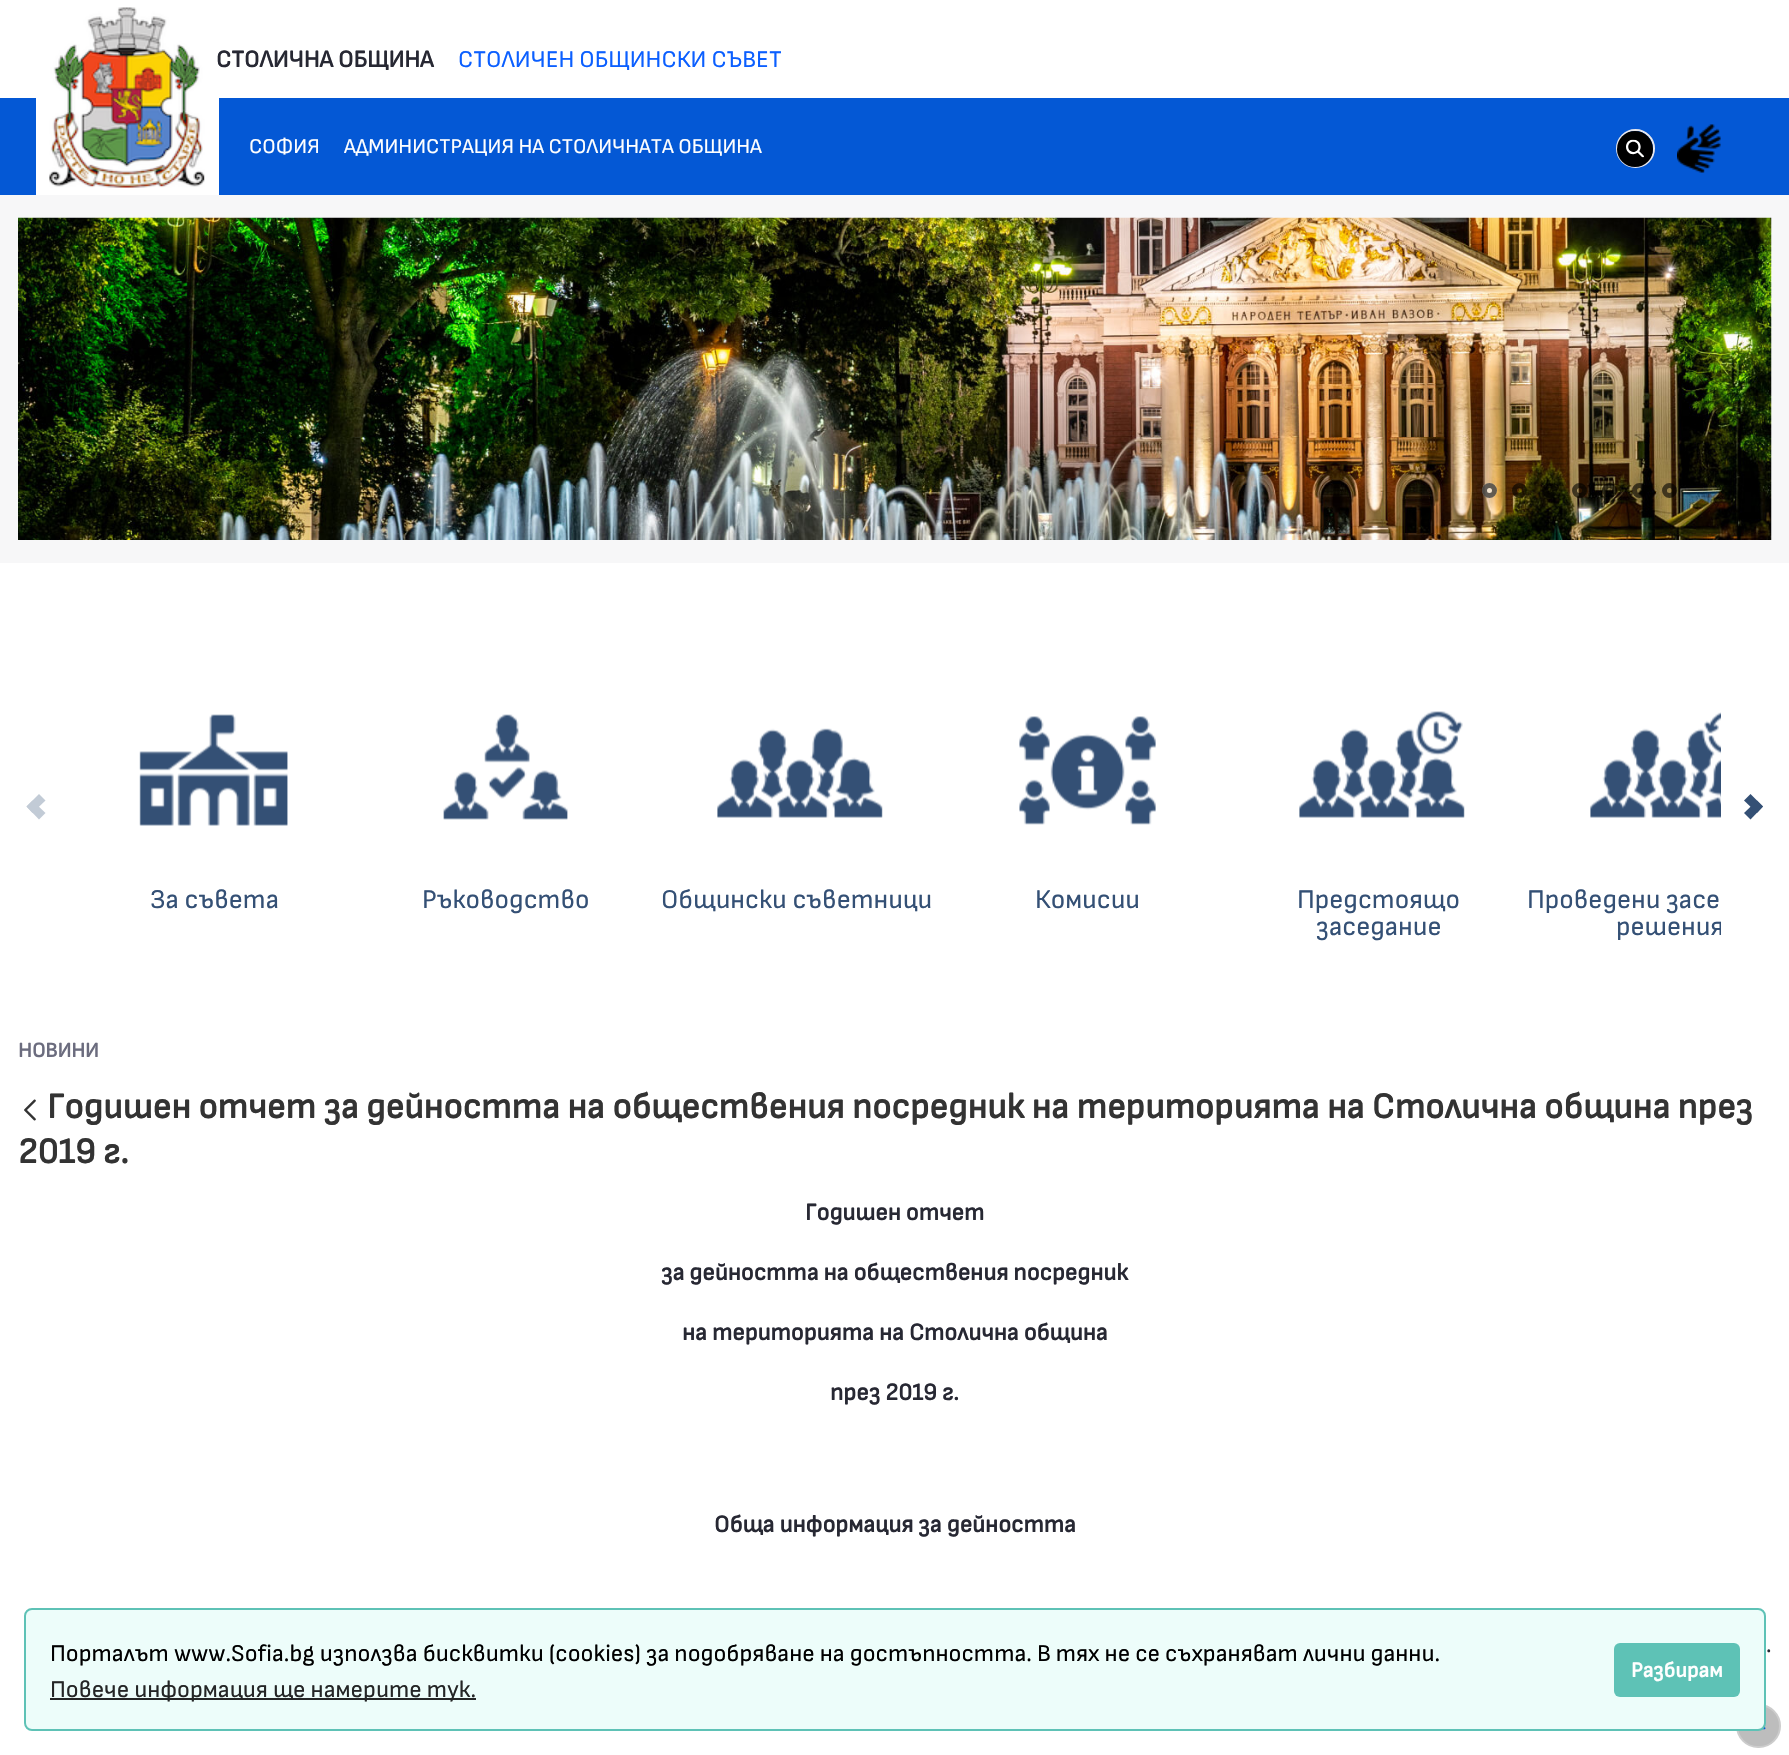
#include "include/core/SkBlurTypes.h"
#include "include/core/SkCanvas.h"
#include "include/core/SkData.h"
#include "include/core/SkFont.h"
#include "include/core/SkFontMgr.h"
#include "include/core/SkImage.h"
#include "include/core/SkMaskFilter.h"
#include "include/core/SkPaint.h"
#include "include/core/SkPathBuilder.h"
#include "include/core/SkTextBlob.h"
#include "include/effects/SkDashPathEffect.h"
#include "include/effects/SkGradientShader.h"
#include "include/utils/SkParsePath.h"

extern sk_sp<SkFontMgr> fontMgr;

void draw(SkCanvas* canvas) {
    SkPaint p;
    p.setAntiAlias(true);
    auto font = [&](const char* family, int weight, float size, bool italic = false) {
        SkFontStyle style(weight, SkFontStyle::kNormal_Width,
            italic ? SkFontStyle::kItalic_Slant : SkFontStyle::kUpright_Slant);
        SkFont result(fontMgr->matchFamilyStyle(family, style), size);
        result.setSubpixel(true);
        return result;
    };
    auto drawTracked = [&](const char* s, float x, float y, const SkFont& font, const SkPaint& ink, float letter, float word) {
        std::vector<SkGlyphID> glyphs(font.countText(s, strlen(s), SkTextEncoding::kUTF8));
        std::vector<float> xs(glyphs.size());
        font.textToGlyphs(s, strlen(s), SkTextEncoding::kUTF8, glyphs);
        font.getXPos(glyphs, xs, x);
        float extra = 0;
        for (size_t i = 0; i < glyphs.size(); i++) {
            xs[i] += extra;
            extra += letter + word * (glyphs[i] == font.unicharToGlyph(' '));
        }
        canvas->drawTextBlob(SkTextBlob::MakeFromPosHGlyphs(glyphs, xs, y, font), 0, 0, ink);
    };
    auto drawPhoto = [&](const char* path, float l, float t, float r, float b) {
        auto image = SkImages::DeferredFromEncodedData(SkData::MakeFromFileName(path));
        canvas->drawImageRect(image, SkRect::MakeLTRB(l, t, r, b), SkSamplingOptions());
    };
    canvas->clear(0xFFFFFFFF);
    p.setColor(0xFF0458D5);
    canvas->drawRect(SkRect::MakeLTRB(0, 98, 1789, 195), p);
    drawPhoto("media/1.png", 36, 7, 219, 195);
    auto font1 = font("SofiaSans", 700, 24);
    p.setColor(0xFF272833);
    canvas->drawString("СТОЛИЧНА ОБЩИНА", 216, 67, font1, p);
    auto font2 = font("SofiaSans", 400, 24);
    p.setColor(0xFF0B5FFF);
    canvas->drawString("СТОЛИЧЕН ОБЩИНСКИ СЪВЕТ", 458, 67, font2, p);
    p.setStyle(SkPaint::kStroke_Style);
    p.setStrokeWidth(2);
    p.setColor(0xFFE7E7ED);
    canvas->drawCircle(1635.5f, 148.5f, 18.5f, p);
    p.setStyle(SkPaint::kFill_Style);
    p.setColor(0xFF000000);
    canvas->drawCircle(1635, 149, 18, p);
    drawPhoto("media/2.png", 1626, 139, 1644, 158);
    drawPhoto("media/3.png", 1677, 124, 1721, 173);
    auto font3 = font("SofiaSans", 400, 21);
    p.setColor(0xFFFFFFFF);
    canvas->drawString("СОФИЯ", 249, 153, font3, p);
    canvas->drawString("АДМИНИСТРАЦИЯ НА СТОЛИЧНАТА ОБЩИНА", 344, 153, font3, p);
    p.setColor(0xFFF7F7F8);
    canvas->drawRect(SkRect::MakeLTRB(0, 195, 1789, 563), p);
    drawPhoto("media/4.png", 18, 217, 1772, 540);
    p.setColor(0x99FFFFFF);
    canvas->drawCircle(1489.5f, 490.5f, 7.5f, p);
    p.setStyle(SkPaint::kStroke_Style);
    p.setStrokeWidth(5);
    p.setColor(0x99000000);
    canvas->drawCircle(1489.5f, 490.5f, 5, p);
    canvas->drawCircle(1519.5f, 490.5f, 5, p);
    canvas->drawCircle(1549.5f, 490.5f, 5, p);
    canvas->drawCircle(1579.5f, 490.5f, 5, p);
    canvas->drawCircle(1609.5f, 490.5f, 5, p);
    canvas->drawCircle(1639.5f, 490.5f, 5, p);
    canvas->drawCircle(1669.5f, 490.5f, 5, p);
    p.setStyle(SkPaint::kFill_Style);
    p.setColor(0xFFC2CBD6);
    canvas->drawPath(SkPathBuilder().moveTo(26.5f, 806.5f).lineTo(39, 794).lineTo(45.5f, 800.5f).lineTo(32.5f, 813).close().detach(), p);
    canvas->drawPath(SkPathBuilder().moveTo(26.5f, 806.5f).lineTo(32.5f, 800.5f).lineTo(45.5f, 813).lineTo(39, 819.5f).close().detach(), p);
    p.setColor(0xFF345075);
    canvas->drawPath(SkPathBuilder().moveTo(1763, 806.5f).lineTo(1750.5f, 819.5f).lineTo(1744, 813).lineTo(1757, 800.5f).close().detach(), p);
    canvas->drawPath(SkPathBuilder().moveTo(1763, 806.5f).lineTo(1757, 813).lineTo(1744, 800.5f).lineTo(1750.5f, 794).close().detach(), p);
    drawPhoto("media/5.png", 139, 714, 288, 826);
    auto font4 = font("SofiaSans", 400, 27);
    canvas->drawString("За съвета", 150, 908, font4, p);
    drawPhoto("media/6.png", 443, 714, 568, 820);
    canvas->drawString("Ръководство", 422, 908, font4, p);
    drawPhoto("media/7.png", 717, 728, 883, 818);
    canvas->drawString("Общински съветници", 661, 908, font4, p);
    drawPhoto("media/8.png", 1019, 716, 1156, 825);
    canvas->drawString("Комисии", 1035, 908, font4, p);
    drawPhoto("media/9.png", 1299, 711, 1465, 818);
    canvas->drawString("Предстоящo", 1297, 908, font4, p);
    canvas->drawString("заседаниe", 1316, 935, font4, p);
    drawPhoto("media/10.png", 1590, 712, 1721, 818);
    canvas->drawString("Проведени засе", 1527, 908, font4, p);
    canvas->save();
    canvas->clipRect(SkRect::MakeLTRB(69, 662, 1721, 953));
    canvas->drawString("решения", 1616, 935, font4, p);
    canvas->restore();
    auto font5 = font("SofiaSans", 700, 21);
    p.setColor(0xFF6B6C7E);
    canvas->drawString("НОВИНИ", 18, 1057, font5, p);
    drawPhoto("media/11.png", 24, 1099, 36, 1121);
    auto font6 = font("SofiaSans", 700, 36);
    p.setColor(0xFF333333);
    canvas->drawString("Годишен отчет за дейността на обществения посредник на територията на Столична община през", 47, 1118, font6, p);
    canvas->drawString("2019 г.", 18, 1163, font6, p);
    p.setColor(0xFF272833);
    {
        const struct { const char* s; float x, y; } items[] = {
            {"Годишен отчет", 805, 1220},
            {"за дейността на обществения посредник", 661, 1280},
            {"на територията на Столична община", 682, 1340},
            {"през 2019 г.", 830, 1400},
            {"Обща информация за дейността", 714, 1532},
        };
        for (auto [s, x, y] : items) {
            canvas->drawString(s, x, y, font1, p);
        }
    }
    drawTracked(".", 1766, 1652, font2, p, 0, 1);
    p.setColor(0x807B7B7B);
    canvas->drawRoundRect(SkRect::MakeLTRB(1737, 1705, 1780, 1747), 21, 21, p);
    p.setStyle(SkPaint::kStroke_Style);
    p.setStrokeWidth(2);
    p.setColor(0xFFCCCCCC);
    canvas->drawRoundRect(SkRect::MakeLTRB(1737, 1705, 1780, 1747), 21, 21, p);
    drawPhoto("media/12.png", 1761, 1726, 1766, 1730);
    p.setStyle(SkPaint::kFill_Style);
    p.setColor(0xFFEDFDFA);
    canvas->drawRoundRect(SkRect::MakeLTRB(25, 1609, 1765, 1730), 7, 7, p);
    p.setStyle(SkPaint::kStroke_Style);
    p.setColor(0xFF5EC2B6);
    canvas->drawRoundRect(SkRect::MakeLTRB(25, 1609, 1765, 1730), 7, 7, p);
    p.setStyle(SkPaint::kFill_Style);
    p.setColor(0xFF000000);
    canvas->drawString("Порталът www.Sofia.bg използва бисквитки (cookies) за подобряване на достъпността. В тях не се съхраняват лични данни.", 50, 1661, font2, p);
    p.setColor(0xFF242626);
    canvas->drawRect(SkRect::MakeLTRB(50, 1698, 476, 1700), p);
    canvas->drawString("Повече информация ще намерите тук.", 50, 1697, font2, p);
    p.setColor(0xFF5EC2B6);
    canvas->drawRoundRect(SkRect::MakeLTRB(1614, 1643, 1740, 1697), 6, 6, p);
    auto font7 = font("SofiaSans", 700, 21.5f);
    p.setColor(0xFFFFFFFF);
    canvas->drawString("Разбирам", 1631, 1677, font7, p);
}
